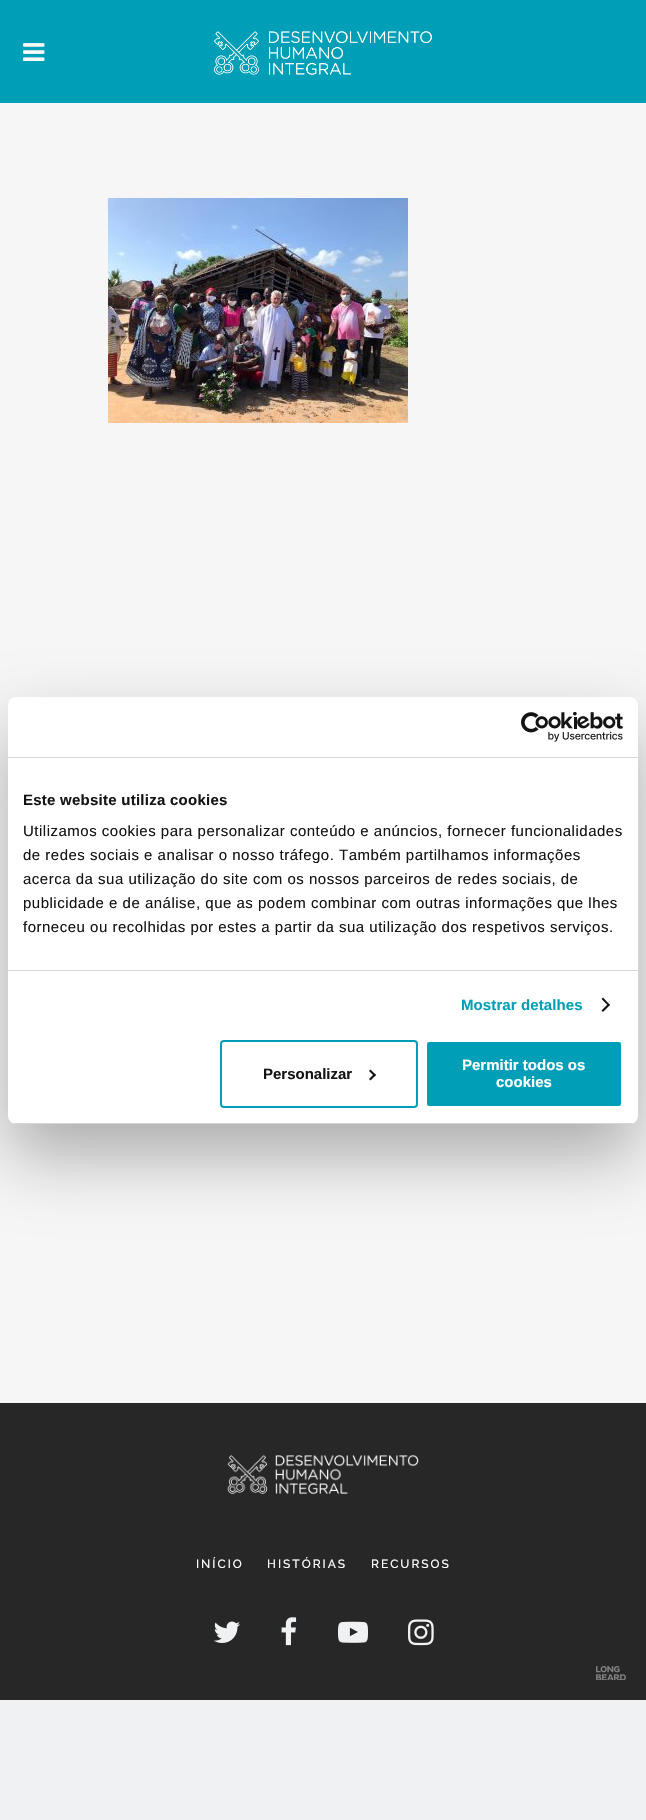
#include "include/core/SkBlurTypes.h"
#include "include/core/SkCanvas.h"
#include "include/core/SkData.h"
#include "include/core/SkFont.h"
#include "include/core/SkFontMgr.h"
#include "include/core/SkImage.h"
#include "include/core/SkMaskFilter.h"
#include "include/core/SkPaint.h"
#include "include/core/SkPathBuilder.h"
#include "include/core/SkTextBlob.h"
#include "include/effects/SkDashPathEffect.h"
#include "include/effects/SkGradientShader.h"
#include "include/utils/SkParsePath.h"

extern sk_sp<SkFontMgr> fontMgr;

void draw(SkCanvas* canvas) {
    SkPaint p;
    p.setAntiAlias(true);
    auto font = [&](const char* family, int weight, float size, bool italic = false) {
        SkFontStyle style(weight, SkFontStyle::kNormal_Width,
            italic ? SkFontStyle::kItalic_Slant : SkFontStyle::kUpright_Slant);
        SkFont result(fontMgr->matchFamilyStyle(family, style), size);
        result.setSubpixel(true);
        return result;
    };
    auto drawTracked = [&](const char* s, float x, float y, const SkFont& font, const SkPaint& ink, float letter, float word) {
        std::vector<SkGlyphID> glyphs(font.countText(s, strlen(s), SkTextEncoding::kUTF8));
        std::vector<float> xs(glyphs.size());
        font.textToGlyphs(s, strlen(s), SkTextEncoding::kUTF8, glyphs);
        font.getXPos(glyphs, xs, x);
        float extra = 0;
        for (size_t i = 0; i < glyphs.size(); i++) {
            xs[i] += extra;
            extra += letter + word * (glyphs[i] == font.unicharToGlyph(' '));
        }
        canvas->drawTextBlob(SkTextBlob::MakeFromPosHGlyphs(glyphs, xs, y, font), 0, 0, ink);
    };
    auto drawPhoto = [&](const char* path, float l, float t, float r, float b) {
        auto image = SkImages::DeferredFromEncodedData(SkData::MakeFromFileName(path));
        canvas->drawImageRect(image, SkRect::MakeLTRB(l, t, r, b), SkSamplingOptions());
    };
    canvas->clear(0xFFEFF1F3);
    p.setColor(0xFFF6F6F6);
    canvas->drawRect(SkRect::MakeLTRB(0, 103, 646, 1403), p);
    p.setColor(0x4D000000);
    p.setMaskFilter(SkMaskFilter::MakeBlur(kNormal_SkBlurStyle, 34));
    canvas->drawRoundRect(SkRect::MakeLTRB(8, 729, 638, 1156), 8, 8, p);
    p.setMaskFilter(nullptr);
    p.setColor(0xFFFFFFFF);
    canvas->drawRoundRect(SkRect::MakeLTRB(8, 697, 638, 1124), 8, 8, p);
    p.setColor(0xFFD6D6D6);
    canvas->drawRect(SkRect::MakeLTRB(8, 757, 638, 758), p);
    drawPhoto("media/1.png", 521, 712, 623, 742);
    canvas->drawRect(SkRect::MakeLTRB(8, 970, 638, 971), p);
    auto font1 = font("Liberation Sans", 700, 15);
    p.setColor(0xFF141414);
    drawTracked("Este website utiliza cookies", 23, 805, font1, p, 0.25f, 0);
    auto font2 = font("Liberation Sans", 400, 15);
    {
        const struct { const char* s; float x, y; } items[] = {
            {"Utilizamos cookies para personalizar conteúdo e anúncios, fornecer funcionalidades", 23, 836},
            {"de redes sociais e analisar o nosso tráfego. Também partilhamos informações", 23, 860},
            {"acerca da sua utilização do site com os nossos parceiros de redes sociais, de", 23, 884},
            {"publicidade e de análise, que as podem combinar com outras informações que lhes", 23, 908},
            {"forneceu ou recolhidas por estes a partir da sua utilização dos respetivos serviços.", 23, 932},
        };
        for (auto [s, x, y] : items) {
            drawTracked(s, x, y, font2, p, 0.5f, 0);
        }
    }
    p.setColor(0xFF009FB7);
    drawTracked("Mostrar detalhes", 461, 1010, font1, p, 0.1f, 0);
    p.setColor(0xFF141414);
    canvas->drawPath(SkPathBuilder().moveTo(603, 997.5f).lineTo(610, 1005).lineTo(608.5f, 1006).lineTo(601.5f, 999).close().detach(), p);
    canvas->drawPath(SkPathBuilder().moveTo(608.5f, 1003.5f).lineTo(610, 1005).lineTo(603, 1012).lineTo(601.5f, 1010.5f).close().detach(), p);
    canvas->save();
    canvas->clipPath(SkPathBuilder().moveTo(16, 697).lineTo(630, 697).cubicTo(634.5f, 697, 638, 700.5f, 638, 705).lineTo(638, 1116).cubicTo(638, 1120.5f, 634.5f, 1124, 630, 1124).lineTo(16, 1124).cubicTo(11.5f, 1124, 8, 1120.5f, 8, 1116).lineTo(8, 705).cubicTo(8, 700.5f, 11.5f, 697, 16, 697).close().detach(), true);
    p.setColor(0xFFD6D6D6);
    canvas->drawRect(SkRect::MakeLTRB(8, 1123, 638, 1124), p);
    canvas->restore();
    p.setStyle(SkPaint::kStroke_Style);
    p.setStrokeWidth(2);
    p.setColor(0xFF009FB7);
    canvas->drawRoundRect(SkRect::MakeLTRB(221, 1041, 417, 1107), 3, 3, p);
    p.setStyle(SkPaint::kFill_Style);
    p.setColor(0xFF141414);
    canvas->drawString("Personalizar", 263, 1079, font1, p);
    canvas->drawPath(SkPathBuilder().moveTo(370.5f, 1069.5f).lineTo(376, 1075).lineTo(374.5f, 1076.5f).lineTo(369, 1071).close().detach(), p);
    canvas->drawPath(SkPathBuilder().moveTo(374.5f, 1073.5f).lineTo(376, 1075).lineTo(370.5f, 1080.5f).lineTo(369, 1079).close().detach(), p);
    p.setColor(0xFF009FB7);
    canvas->drawRoundRect(SkRect::MakeLTRB(426, 1041, 622, 1107), 3, 3, p);
    p.setStyle(SkPaint::kStroke_Style);
    p.setColor(0xFFFFFFFF);
    canvas->drawRoundRect(SkRect::MakeLTRB(426, 1041, 622, 1107), 3, 3, p);
    p.setStyle(SkPaint::kFill_Style);
    canvas->drawString("Permitir todos os", 462, 1070, font1, p);
    canvas->drawString("cookies", 496, 1087, font1, p);
    p.setColor(0xFF009FB7);
    canvas->drawRect(SkRect::MakeLTRB(0, 0, 646, 103), p);
    drawPhoto("media/2.png", 23, 43, 45, 61);
    drawPhoto("media/3.png", 214, 31, 432, 75);
    drawPhoto("media/4.png", 108, 198, 408, 423);
    p.setColor(0xFF272727);
    canvas->drawRect(SkRect::MakeLTRB(0, 1403, 646, 1700), p);
    drawPhoto("media/5.png", 227, 1455, 419, 1495);
    auto font3 = font("Raleway", 100, 12);
    p.setColor(0xFFFFFFFF);
    {
        const struct { const char* s; float x, y; } items[] = {
            {"INÍCIO", 196, 1568},
            {"HISTÓRIAS", 267, 1568},
            {"RECURSOS", 371, 1568},
        };
        for (auto [s, x, y] : items) {
            drawTracked(s, x, y, font3, p, 2, 0);
        }
    }
    drawPhoto("media/6.png", 214, 1621, 240, 1643);
    drawPhoto("media/7.png", 281, 1617, 297, 1646);
    drawPhoto("media/8.png", 338, 1621, 368, 1643);
    drawPhoto("media/9.png", 408, 1619, 434, 1646);
    drawPhoto("media/10.png", 596, 1666, 626, 1680);
}
